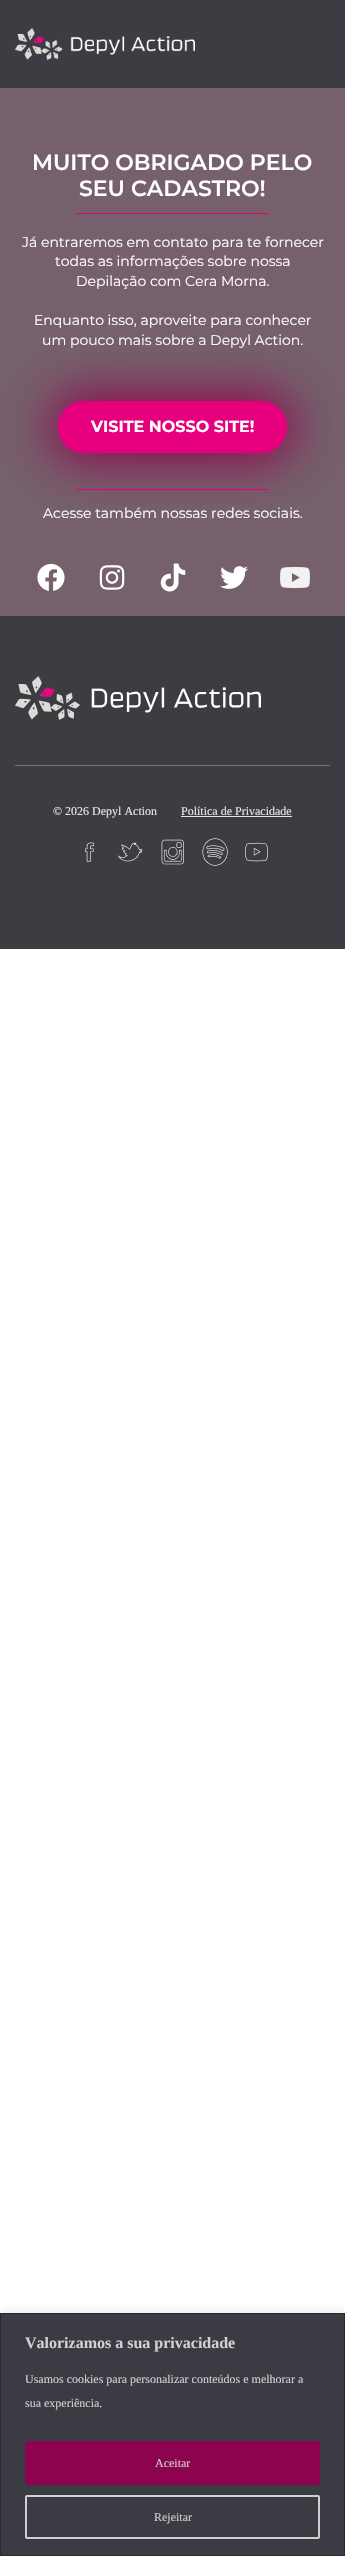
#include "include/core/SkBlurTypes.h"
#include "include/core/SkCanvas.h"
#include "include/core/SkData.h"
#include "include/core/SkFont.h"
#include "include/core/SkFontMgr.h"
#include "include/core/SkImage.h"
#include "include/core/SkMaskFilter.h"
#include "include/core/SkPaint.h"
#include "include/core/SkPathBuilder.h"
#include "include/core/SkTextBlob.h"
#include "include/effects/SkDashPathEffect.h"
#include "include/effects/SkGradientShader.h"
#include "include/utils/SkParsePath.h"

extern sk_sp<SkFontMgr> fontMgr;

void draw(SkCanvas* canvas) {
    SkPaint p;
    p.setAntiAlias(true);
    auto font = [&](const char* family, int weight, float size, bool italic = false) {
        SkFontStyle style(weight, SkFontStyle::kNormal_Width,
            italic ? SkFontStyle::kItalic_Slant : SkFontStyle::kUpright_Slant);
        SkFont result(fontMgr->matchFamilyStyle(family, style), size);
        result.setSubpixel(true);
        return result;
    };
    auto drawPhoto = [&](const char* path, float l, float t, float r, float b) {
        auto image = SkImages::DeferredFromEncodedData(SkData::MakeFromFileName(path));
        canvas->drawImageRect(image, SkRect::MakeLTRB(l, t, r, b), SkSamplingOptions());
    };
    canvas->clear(0xFFFFFFFF);
    p.setColor(0xFF3B3D43);
    canvas->drawRect(SkRect::MakeLTRB(0, 0, 345, 88), p);
    drawPhoto("media/1.png", 15, 28, 195, 60);
    p.setColor(0xFF75606B);
    canvas->drawRect(SkRect::MakeLTRB(0, 88, 345, 616), p);
    auto font1 = font("Montserrat", 600, 22);
    p.setColor(0xFFFFFFFF);
    canvas->drawString("MUITO OBRIGADO PELO", 32, 170, font1, p);
    canvas->drawString("SEU CADASTRO!", 79, 196, font1, p);
    p.setColor(0xFFE6007E);
    canvas->drawRect(SkRect::MakeLTRB(76, 213, 269, 214), p);
    auto font2 = font("Montserrat", 400, 14);
    p.setColor(0xFFFFFFFF);
    {
        const struct { const char* s; float x, y; } items[] = {
            {"Já entraremos em contato para te fornecer", 22, 247},
            {"todas as informações sobre nossa", 55, 266},
            {"Depilação com Cera Morna.", 76, 286},
            {"Enquanto isso, aproveite para conhecer", 34, 325},
            {"um pouco mais sobre a Depyl Action.", 42, 345},
        };
        for (auto [s, x, y] : items) {
            canvas->drawString(s, x, y, font2, p);
        }
    }
    p.setColor(0xFF8E044E);
    p.setMaskFilter(SkMaskFilter::MakeBlur(kNormal_SkBlurStyle, 25));
    canvas->drawRoundRect(SkRect::MakeLTRB(50, 393, 295, 461), 34, 34, p);
    p.setMaskFilter(nullptr);
    p.setColor(0xFFE6007E);
    canvas->drawRoundRect(SkRect::MakeLTRB(59.5f, 402.5f, 285.5f, 451.5f), 24.5f, 24.5f, p);
    p.setStyle(SkPaint::kStroke_Style);
    p.setStrokeWidth(3);
    canvas->drawRoundRect(SkRect::MakeLTRB(59.5f, 402.5f, 285.5f, 451.5f), 24.5f, 24.5f, p);
    auto font3 = font("Montserrat", 700, 16);
    p.setStyle(SkPaint::kFill_Style);
    p.setColor(0xFFFFFFFF);
    canvas->drawString("VISITE NOSSO SITE!", 91, 432, font3, p);
    p.setColor(0xFFE6007E);
    canvas->drawRect(SkRect::MakeLTRB(76, 489, 269, 490), p);
    p.setColor(0xFFFFFFFF);
    canvas->drawString("Acesse também nossas redes sociais.", 43, 518, font2, p);
    drawPhoto("media/2.png", 37, 563, 65, 591);
    drawPhoto("media/3.png", 99, 565, 125, 590);
    drawPhoto("media/4.png", 160, 563, 186, 592);
    drawPhoto("media/5.png", 220, 566, 248, 589);
    drawPhoto("media/6.png", 280, 567, 310, 588);
    p.setColor(0xFF3B3D43);
    canvas->drawRect(SkRect::MakeLTRB(0, 616, 345, 949), p);
    p.setColor(0xFF767676);
    canvas->drawRect(SkRect::MakeLTRB(15, 765, 330, 766), p);
    drawPhoto("media/7.png", 15, 676, 261, 720);
    auto font4 = font("Liberation Serif", 400, 12);
    p.setColor(0xFFE5E5E5);
    canvas->drawString("© 2026 Depyl Action", 53, 815, font4, p);
    canvas->drawString("Política de Privacidade", 181, 815, font4, p);
    canvas->drawRect(SkRect::MakeLTRB(181, 816, 292, 817), p);
    drawPhoto("media/8.png", 85, 842, 94, 862);
    drawPhoto("media/9.png", 118, 842, 143, 862);
    drawPhoto("media/10.png", 161, 839, 184, 865);
    drawPhoto("media/11.png", 202, 838, 228, 866);
    drawPhoto("media/12.png", 245, 842, 268, 862);
    p.setColor(0x4DACABAB);
    p.setMaskFilter(SkMaskFilter::MakeBlur(kNormal_SkBlurStyle, 5));
    canvas->drawRect(SkRect::MakeLTRB(0, 2312, 345, 2555), p);
    p.setMaskFilter(nullptr);
    p.setColor(0xFF3B3C43);
    canvas->drawRect(SkRect::MakeLTRB(0.5f, 2313.5f, 344.5f, 2555.5f), p);
    p.setStyle(SkPaint::kStroke_Style);
    p.setStrokeWidth(1);
    p.setColor(0xFF2A2A2A);
    canvas->drawRect(SkRect::MakeLTRB(0.5f, 2313.5f, 344.5f, 2555.5f), p);
    auto font5 = font("Liberation Serif", 700, 16);
    p.setStyle(SkPaint::kFill_Style);
    p.setColor(0xFFD0D0D0);
    canvas->drawString("Valorizamos a sua privacidade", 25, 2348, font5, p);
    canvas->drawString("Usamos cookies para personalizar conteúdos e melhorar a", 25, 2383, font4, p);
    canvas->drawString("sua experiência.", 25, 2407, font4, p);
    p.setColor(0xFF8D044E);
    canvas->drawRoundRect(SkRect::MakeLTRB(26, 2442, 319, 2484), 1, 1, p);
    p.setStyle(SkPaint::kStroke_Style);
    p.setStrokeWidth(2);
    canvas->drawRoundRect(SkRect::MakeLTRB(26, 2442, 319, 2484), 1, 1, p);
    p.setStyle(SkPaint::kFill_Style);
    p.setColor(0xFFD0D0D0);
    canvas->drawString("Aceitar", 155, 2467, font4, p);
    p.setStyle(SkPaint::kStroke_Style);
    canvas->drawRoundRect(SkRect::MakeLTRB(26, 2496, 319, 2538), 1, 1, p);
    p.setStyle(SkPaint::kFill_Style);
    canvas->drawString("Rejeitar", 154, 2521, font4, p);
}
